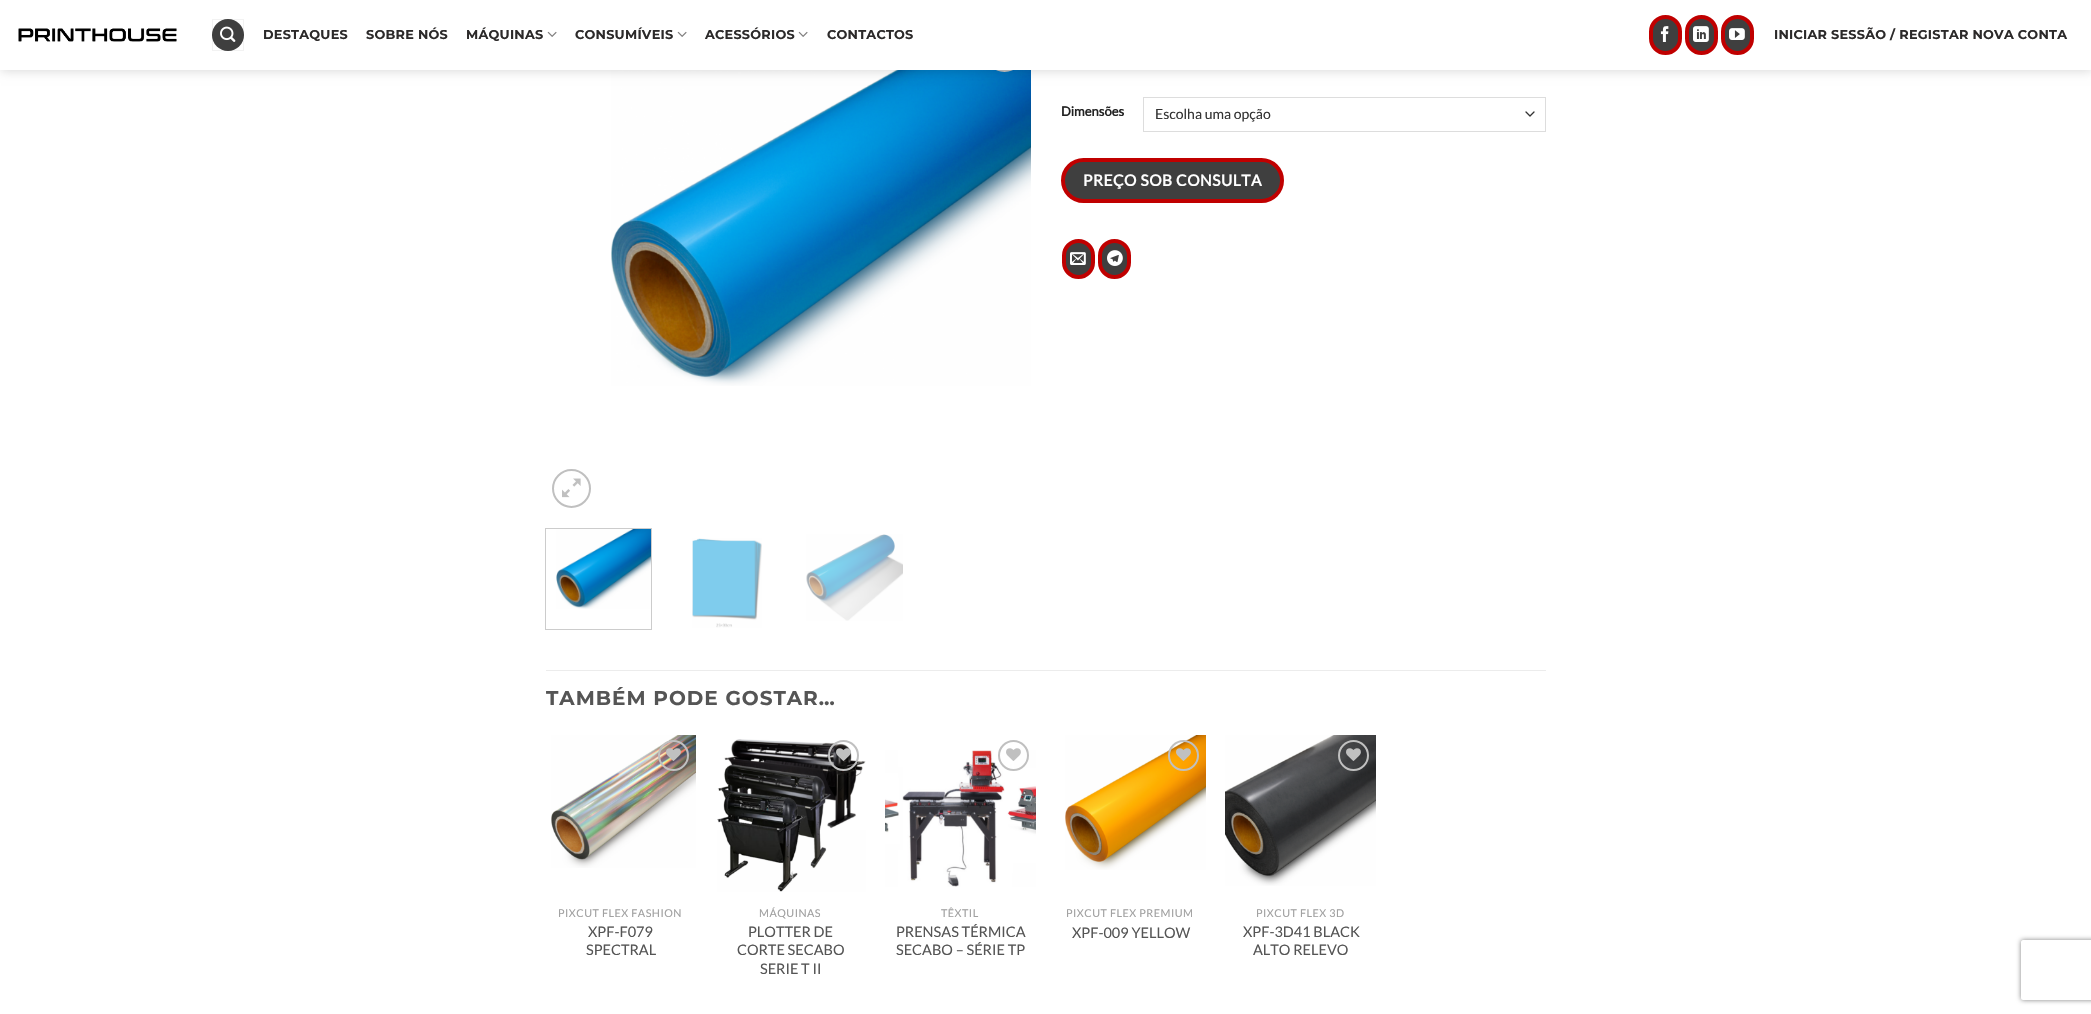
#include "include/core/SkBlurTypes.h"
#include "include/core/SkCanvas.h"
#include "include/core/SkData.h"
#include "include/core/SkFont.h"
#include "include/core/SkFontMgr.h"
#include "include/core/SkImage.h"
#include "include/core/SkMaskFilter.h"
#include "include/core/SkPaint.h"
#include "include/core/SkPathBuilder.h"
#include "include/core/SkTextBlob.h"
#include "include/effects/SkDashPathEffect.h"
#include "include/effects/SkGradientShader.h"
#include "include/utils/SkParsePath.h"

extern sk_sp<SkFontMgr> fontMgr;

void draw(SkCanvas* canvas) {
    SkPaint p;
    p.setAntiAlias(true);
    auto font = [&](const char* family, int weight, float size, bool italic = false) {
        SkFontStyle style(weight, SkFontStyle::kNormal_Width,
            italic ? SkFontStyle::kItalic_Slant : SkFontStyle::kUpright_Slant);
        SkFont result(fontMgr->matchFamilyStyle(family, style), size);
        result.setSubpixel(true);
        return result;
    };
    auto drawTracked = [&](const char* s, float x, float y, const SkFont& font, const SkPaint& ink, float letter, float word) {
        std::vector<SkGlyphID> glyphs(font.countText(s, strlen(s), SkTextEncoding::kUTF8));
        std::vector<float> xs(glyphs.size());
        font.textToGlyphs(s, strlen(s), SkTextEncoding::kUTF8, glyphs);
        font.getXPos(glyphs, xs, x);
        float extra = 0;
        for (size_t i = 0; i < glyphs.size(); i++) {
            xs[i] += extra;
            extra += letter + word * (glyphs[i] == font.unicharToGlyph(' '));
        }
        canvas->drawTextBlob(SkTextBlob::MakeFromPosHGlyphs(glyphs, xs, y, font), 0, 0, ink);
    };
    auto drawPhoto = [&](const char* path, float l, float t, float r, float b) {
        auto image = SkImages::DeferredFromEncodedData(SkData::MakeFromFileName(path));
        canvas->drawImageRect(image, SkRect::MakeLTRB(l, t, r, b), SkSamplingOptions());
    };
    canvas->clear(0xFFFFFFFF);
    drawPhoto("media/7.png", 611, 70, 1031, 386);
    p.setStyle(SkPaint::kStroke_Style);
    p.setStrokeWidth(2);
    p.setColor(0xFFC0C0C0);
    canvas->drawCircle(1004.5f, 52.5f, 18.5f, p);
    p.setStyle(SkPaint::kFill_Style);
    p.setColor(0x26000000);
    p.setMaskFilter(SkMaskFilter::MakeBlur(kNormal_SkBlurStyle, 5));
    canvas->drawRect(SkRect::MakeLTRB(1, 1, 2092, 71), p);
    p.setMaskFilter(nullptr);
    p.setColor(0xFFFFFFFF);
    canvas->drawRect(SkRect::MakeLTRB(0, 0, 2091, 70), p);
    drawPhoto("media/1.png", 18, 28, 177, 42);
    p.setColor(0xFF3F3F3F);
    canvas->drawCircle(228, 35, 16, p);
    p.setStyle(SkPaint::kStroke_Style);
    p.setStrokeWidth(1);
    p.setColor(0x0D000000);
    canvas->drawRect(SkRect::MakeLTRB(212.5f, 19.5f, 243.5f, 50.5f), p);
    drawPhoto("media/2.png", 220, 26, 236, 42);
    auto font1 = font("Montserrat", 700, 12.8f);
    p.setStyle(SkPaint::kFill_Style);
    p.setColor(0xFF2C2A2A);
    {
        const struct { const char* s; float x, y; } items[] = {
            {"DESTAQUES", 263, 39},
            {"SOBRE NÓS", 366, 39},
            {"MÁQUINAS", 466, 39},
        };
        for (auto [s, x, y] : items) {
            drawTracked(s, x, y, font1, p, 0.25f, 0);
        }
    }
    drawPhoto("media/3.png", 547, 31, 557, 37);
    drawTracked("CONSUMÍVEIS", 575, 39, font1, p, 0.25f, 0);
    drawPhoto("media/3.png", 677, 31, 687, 37);
    drawTracked("ACESSÓRIOS", 705, 39, font1, p, 0.25f, 0);
    drawPhoto("media/3.png", 798, 31, 808, 37);
    drawTracked("CONTACTOS", 827, 39, font1, p, 0.25f, 0);
    p.setColor(0xFF3F3F3F);
    canvas->drawRoundRect(SkRect::MakeLTRB(1651, 17, 1680, 53), 14.5f, 14.5f, p);
    p.setStyle(SkPaint::kStroke_Style);
    p.setStrokeWidth(4);
    p.setColor(0xFFC00000);
    canvas->drawRoundRect(SkRect::MakeLTRB(1651, 17, 1680, 53), 14.5f, 14.5f, p);
    drawPhoto("media/4.png", 1660, 26, 1669, 42);
    p.setStyle(SkPaint::kFill_Style);
    p.setColor(0xFF3F3F3F);
    canvas->drawRoundRect(SkRect::MakeLTRB(1687, 17, 1716, 53), 14.5f, 14.5f, p);
    p.setStyle(SkPaint::kStroke_Style);
    p.setColor(0xFFC00000);
    canvas->drawRoundRect(SkRect::MakeLTRB(1687, 17, 1716, 53), 14.5f, 14.5f, p);
    drawPhoto("media/5.png", 1693, 26, 1709, 42);
    p.setStyle(SkPaint::kFill_Style);
    p.setColor(0xFF3F3F3F);
    canvas->drawRoundRect(SkRect::MakeLTRB(1723, 17, 1752, 53), 14.5f, 14.5f, p);
    p.setStyle(SkPaint::kStroke_Style);
    p.setColor(0xFFC00000);
    canvas->drawRoundRect(SkRect::MakeLTRB(1723, 17, 1752, 53), 14.5f, 14.5f, p);
    drawPhoto("media/6.png", 1729, 28, 1745, 40);
    p.setStyle(SkPaint::kFill_Style);
    p.setColor(0xFF2C2A2A);
    drawTracked("INICIAR SESSÃO / REGISTAR NOVA CONTA", 1774, 39, font1, p, 0.25f, 0);
    p.setStyle(SkPaint::kStroke_Style);
    p.setStrokeWidth(2);
    p.setColor(0xFFC0C0C0);
    canvas->drawCircle(571.5f, 488.5f, 18.5f, p);
    drawPhoto("media/8.png", 562, 478, 581, 498);
    p.setStrokeWidth(1);
    p.setColor(0xFFCCCCCC);
    canvas->drawRect(SkRect::MakeLTRB(545.5f, 528.5f, 651.5f, 629.5f), p);
    drawPhoto("media/9.png", 556, 529, 651, 609);
    drawPhoto("media/10.png", 692, 538, 762, 628);
    drawPhoto("media/11.png", 806, 534, 903, 621);
    auto font2 = font("Lato", 700, 13);
    p.setStyle(SkPaint::kFill_Style);
    p.setColor(0xFF222222);
    canvas->drawString("Dimensões", 1061, 116, font2, p);
    p.setStyle(SkPaint::kStroke_Style);
    p.setStrokeWidth(1.3f);
    p.setStrokeCap(SkPaint::kRound_Cap);
    p.setStrokeJoin(SkPaint::kRound_Join);
    p.setColor(0xFF333333);
    canvas->drawPath(SkPathBuilder().moveTo(1526, 112).lineTo(1530, 116).lineTo(1534, 112).detach(), p);
    p.setStrokeWidth(1);
    p.setStrokeCap(SkPaint::kButt_Cap);
    p.setStrokeJoin(SkPaint::kMiter_Join);
    p.setColor(0xFFDDDDDD);
    canvas->drawRect(SkRect::MakeLTRB(1143.5f, 97.5f, 1545.5f, 131.5f), p);
    auto font3 = font("Lato", 400, 14);
    p.setStyle(SkPaint::kFill_Style);
    p.setColor(0xFF333333);
    canvas->drawString("Escolha uma opção", 1155, 119, font3, p);
    p.setColor(0xFF3F3F3F);
    canvas->drawRoundRect(SkRect::MakeLTRB(1063, 160, 1282, 201), 20.5f, 20.5f, p);
    p.setStyle(SkPaint::kStroke_Style);
    p.setStrokeWidth(4);
    p.setColor(0xFFC00000);
    canvas->drawRoundRect(SkRect::MakeLTRB(1063, 160, 1282, 201), 20.5f, 20.5f, p);
    auto font4 = font("Lato", 700, 15.5f);
    p.setStyle(SkPaint::kFill_Style);
    p.setColor(0xFFFFFFFF);
    drawTracked("PREÇO SOB CONSULTA", 1083, 186, font4, p, 0.5f, 0);
    p.setColor(0xFF3F3F3F);
    canvas->drawRoundRect(SkRect::MakeLTRB(1064, 241, 1093, 277), 14.5f, 14.5f, p);
    p.setStyle(SkPaint::kStroke_Style);
    p.setColor(0xFFC00000);
    canvas->drawRoundRect(SkRect::MakeLTRB(1064, 241, 1093, 277), 14.5f, 14.5f, p);
    drawPhoto("media/12.png", 1070, 252, 1086, 265);
    p.setStyle(SkPaint::kFill_Style);
    p.setColor(0xFF3F3F3F);
    canvas->drawRoundRect(SkRect::MakeLTRB(1100, 241, 1129, 277), 14.5f, 14.5f, p);
    p.setStyle(SkPaint::kStroke_Style);
    p.setColor(0xFFC00000);
    canvas->drawRoundRect(SkRect::MakeLTRB(1100, 241, 1129, 277), 14.5f, 14.5f, p);
    drawPhoto("media/13.png", 1107, 250, 1123, 266);
    p.setStyle(SkPaint::kFill_Style);
    p.setColor(0xFFECECEC);
    canvas->drawRect(SkRect::MakeLTRB(546, 670, 1546, 671), p);
    auto font5 = font("Montserrat", 700, 20);
    p.setColor(0xFF555555);
    drawTracked("TAMBÉM PODE GOSTAR…", 546, 705, font5, p, 1, 0);
    drawPhoto("media/14.png", 551, 735, 696, 868);
    p.setStyle(SkPaint::kStroke_Style);
    p.setStrokeWidth(2);
    p.setColor(0xFFC0C0C0);
    canvas->drawCircle(673.5f, 755.5f, 14.5f, p);
    drawPhoto("media/15.png", 666, 748, 681, 761);
    auto font6 = font("Lato", 400, 10.75f);
    p.setStyle(SkPaint::kFill_Style);
    p.setColor(0xFFA0A0A0);
    drawTracked("PIXCUT FLEX FASHION", 558, 917, font6, p, 0.5f, 0);
    auto font7 = font("Lato", 400, 14.5f);
    p.setColor(0xFF555555);
    canvas->drawString("XPF-F079", 588, 937, font7, p);
    canvas->drawString("SPECTRAL", 586, 955, font7, p);
    drawPhoto("media/16.png", 717, 739, 866, 892);
    p.setStyle(SkPaint::kStroke_Style);
    p.setColor(0xFFC0C0C0);
    canvas->drawCircle(843.5f, 755.5f, 14.5f, p);
    drawPhoto("media/17.png", 836, 748, 851, 761);
    p.setStyle(SkPaint::kFill_Style);
    p.setColor(0xFFA0A0A0);
    drawTracked("MÁQUINAS", 759, 917, font6, p, 0.5f, 0);
    p.setColor(0xFF555555);
    {
        const struct { const char* s; float x, y; } items[] = {
            {"PLOTTER DE", 748, 937},
            {"CORTE SECABO", 737, 955},
            {"SERIE T II", 760, 974},
        };
        for (auto [s, x, y] : items) {
            canvas->drawString(s, x, y, font7, p);
        }
    }
    drawPhoto("media/19.png", 885, 750, 1036, 887);
    p.setStyle(SkPaint::kStroke_Style);
    p.setColor(0xFFC0C0C0);
    canvas->drawCircle(1013.5f, 755.5f, 14.5f, p);
    drawPhoto("media/18.png", 1006, 748, 1021, 761);
    p.setStyle(SkPaint::kFill_Style);
    p.setColor(0xFFA0A0A0);
    drawTracked("TÊXTIL", 941, 917, font6, p, 0.5f, 0);
    p.setColor(0xFF555555);
    canvas->drawString("PRENSAS TÉRMICA", 896, 937, font7, p);
    canvas->drawString("SECABO – SÉRIE TP", 896, 955, font7, p);
    drawPhoto("media/20.png", 1065, 735, 1206, 870);
    p.setStyle(SkPaint::kStroke_Style);
    p.setColor(0xFFC0C0C0);
    canvas->drawCircle(1183.5f, 755.5f, 14.5f, p);
    drawPhoto("media/21.png", 1176, 748, 1191, 761);
    p.setStyle(SkPaint::kFill_Style);
    p.setColor(0xFFA0A0A0);
    drawTracked("PIXCUT FLEX PREMIUM", 1066, 917, font6, p, 0.5f, 0);
    p.setColor(0xFF555555);
    canvas->drawString("XPF-009 YELLOW", 1072, 938, font7, p);
    drawPhoto("media/22.png", 1225, 735, 1376, 886);
    p.setStyle(SkPaint::kStroke_Style);
    p.setColor(0xFFC0C0C0);
    canvas->drawCircle(1353.5f, 755.5f, 14.5f, p);
    drawPhoto("media/23.png", 1346, 748, 1361, 761);
    p.setStyle(SkPaint::kFill_Style);
    p.setColor(0xFFA0A0A0);
    drawTracked("PIXCUT FLEX 3D", 1256, 917, font6, p, 0.5f, 0);
    p.setColor(0xFF555555);
    canvas->drawString("XPF-3D41 BLACK", 1243, 937, font7, p);
    canvas->drawString("ALTO RELEVO", 1253, 955, font7, p);
    canvas->save();
    canvas->clipPath(SkPathBuilder(SkPathFillType::kEvenOdd).moveTo(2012, 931).lineTo(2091, 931).lineTo(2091, 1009).lineTo(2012, 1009).close().moveTo(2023, 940).lineTo(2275, 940).cubicTo(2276, 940, 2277, 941, 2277, 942).lineTo(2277, 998).cubicTo(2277, 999, 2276, 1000, 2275, 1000).lineTo(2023, 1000).cubicTo(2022, 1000, 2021, 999, 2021, 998).lineTo(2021, 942).cubicTo(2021, 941, 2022, 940, 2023, 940).close().detach(), true);
    p.setColor(0xFF808080);
    p.setMaskFilter(SkMaskFilter::MakeBlur(kNormal_SkBlurStyle, 2.5f));
    canvas->drawRoundRect(SkRect::MakeLTRB(2021, 940, 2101, 1000), 2, 2, p);
    p.setMaskFilter(nullptr);
    canvas->restore();
}
